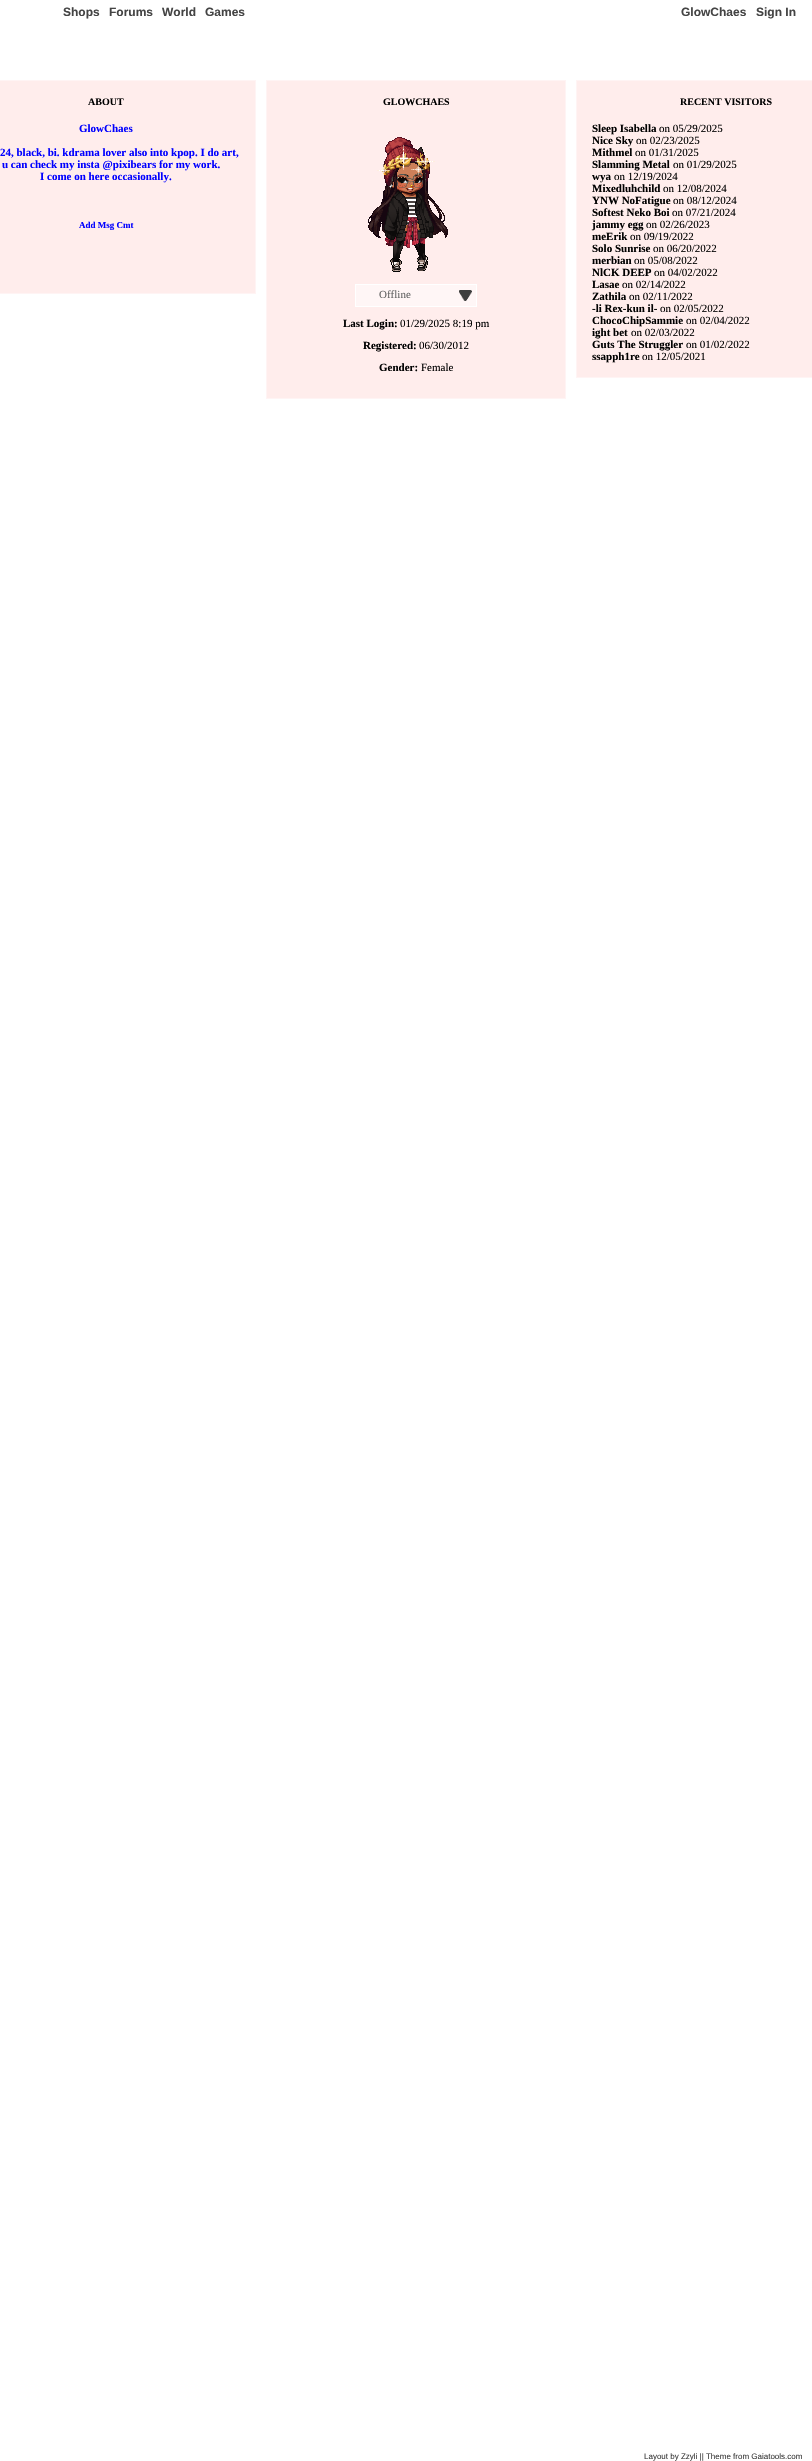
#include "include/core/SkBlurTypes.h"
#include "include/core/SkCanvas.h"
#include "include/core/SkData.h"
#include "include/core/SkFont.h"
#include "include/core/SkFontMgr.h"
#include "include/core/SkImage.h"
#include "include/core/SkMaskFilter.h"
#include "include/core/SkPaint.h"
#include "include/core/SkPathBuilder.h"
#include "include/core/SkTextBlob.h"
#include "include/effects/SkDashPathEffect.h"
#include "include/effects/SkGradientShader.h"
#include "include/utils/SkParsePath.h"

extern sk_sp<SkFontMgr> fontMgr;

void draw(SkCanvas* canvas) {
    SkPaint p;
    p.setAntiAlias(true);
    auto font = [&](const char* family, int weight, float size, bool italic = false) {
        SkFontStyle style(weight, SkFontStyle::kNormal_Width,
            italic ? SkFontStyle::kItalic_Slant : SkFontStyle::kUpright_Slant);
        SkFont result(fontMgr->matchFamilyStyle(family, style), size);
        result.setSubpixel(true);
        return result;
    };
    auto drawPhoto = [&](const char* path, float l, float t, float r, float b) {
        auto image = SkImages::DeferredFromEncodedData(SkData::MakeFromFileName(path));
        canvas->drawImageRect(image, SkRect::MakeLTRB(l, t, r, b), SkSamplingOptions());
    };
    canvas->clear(0xFFFFFFFF);
    auto font1 = font("Liberation Sans", 700, 12);
    p.setColor(0xFF444444);
    {
        const struct { const char* s; float x, y; } items[] = {
            {"Shops", 63, 16},
            {"Forums", 109, 16},
            {"World", 162, 16},
            {"Games", 205, 16},
            {"GlowChaes", 681, 16},
            {"Sign In", 756, 16},
        };
        for (auto [s, x, y] : items) {
            canvas->drawString(s, x, y, font1, p);
        }
    }
    p.setColor(0xFFFFEDEC);
    canvas->drawRect(SkRect::MakeLTRB(-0.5f, 80.5f, 255.5f, 293.5f), p);
    p.setStyle(SkPaint::kStroke_Style);
    p.setStrokeWidth(1);
    p.setColor(0xFFFFF4F4);
    canvas->drawRect(SkRect::MakeLTRB(-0.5f, 80.5f, 255.5f, 293.5f), p);
    auto font2 = font("Liberation Serif", 700, 10);
    p.setStyle(SkPaint::kFill_Style);
    p.setColor(0xFF000000);
    canvas->drawString("ABOUT", 88, 105, font2, p);
    auto font3 = font("Liberation Serif", 700, 11);
    p.setColor(0xFF0000FF);
    {
        const struct { const char* s; float x, y; } items[] = {
            {"GlowChaes", 79, 132},
            {"24, black, bi. kdrama lover also into kpop. I do art,", 0, 156},
            {"u can check my insta @pixibears for my work.", 2, 168},
            {"I come on here occasionally.", 40, 180},
        };
        for (auto [s, x, y] : items) {
            canvas->drawString(s, x, y, font3, p);
        }
    }
    auto font4 = font("Liberation Serif", 700, 9);
    canvas->drawString("Add Msg Cmt", 79, 228, font4, p);
    p.setColor(0xFFFFEDEC);
    canvas->drawRect(SkRect::MakeLTRB(266.5f, 80.5f, 565.5f, 398.5f), p);
    p.setStyle(SkPaint::kStroke_Style);
    p.setColor(0xFFFFF4F4);
    canvas->drawRect(SkRect::MakeLTRB(266.5f, 80.5f, 565.5f, 398.5f), p);
    p.setStyle(SkPaint::kFill_Style);
    p.setColor(0xFF000000);
    canvas->drawString("GLOWCHAES", 383, 105, font2, p);
    drawPhoto("media/1.png", 368, 137, 448, 272);
    p.setColor(0xFFFFF6F6);
    canvas->drawRect(SkRect::MakeLTRB(355.5f, 284.5f, 476.5f, 306.5f), p);
    p.setStyle(SkPaint::kStroke_Style);
    p.setColor(0xFFFFFFFF);
    canvas->drawRect(SkRect::MakeLTRB(355.5f, 284.5f, 476.5f, 306.5f), p);
    auto font5 = font("Liberation Serif", 400, 11);
    p.setStyle(SkPaint::kFill_Style);
    p.setColor(0xFF666666);
    canvas->drawString("Offline", 379, 298, font5, p);
    drawPhoto("media/2.png", 459, 290, 472, 301);
    p.setColor(0xFF000000);
    canvas->drawString("Last Login:", 343, 327, font3, p);
    canvas->drawString("01/29/2025 8:19 pm", 400, 327, font5, p);
    canvas->drawString("Registered:", 363, 349, font3, p);
    canvas->drawString("06/30/2012", 419, 349, font5, p);
    canvas->drawString("Gender:", 379, 371, font3, p);
    canvas->drawString("Female", 421, 371, font5, p);
    p.setColor(0xFFFFEDEC);
    canvas->drawRect(SkRect::MakeLTRB(576.5f, 80.5f, 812.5f, 377.5f), p);
    p.setStyle(SkPaint::kStroke_Style);
    p.setColor(0xFFFFF4F4);
    canvas->drawRect(SkRect::MakeLTRB(576.5f, 80.5f, 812.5f, 377.5f), p);
    p.setStyle(SkPaint::kFill_Style);
    p.setColor(0xFF000000);
    canvas->drawString("RECENT VISITORS", 680, 105, font2, p);
    canvas->drawString("Sleep Isabella", 592, 132, font3, p);
    canvas->drawString("on 05/29/2025", 659, 132, font5, p);
    canvas->drawString("Nice Sky", 592, 144, font3, p);
    canvas->drawString("on 02/23/2025", 636, 144, font5, p);
    canvas->drawString("Mithmel", 592, 156, font3, p);
    canvas->drawString("on 01/31/2025", 635, 156, font5, p);
    canvas->drawString("Slamming Metal", 592, 168, font3, p);
    canvas->drawString("on 01/29/2025", 673, 168, font5, p);
    canvas->drawString("wya", 592, 180, font3, p);
    canvas->drawString("on 12/19/2024", 614, 180, font5, p);
    canvas->drawString("Mixedluhchild", 592, 192, font3, p);
    canvas->drawString("on 12/08/2024", 663, 192, font5, p);
    canvas->drawString("YNW NoFatigue", 592, 204, font3, p);
    canvas->drawString("on 08/12/2024", 673, 204, font5, p);
    canvas->drawString("Softest Neko Boi", 592, 216, font3, p);
    canvas->drawString("on 07/21/2024", 672, 216, font5, p);
    canvas->drawString("jammy egg", 592, 228, font3, p);
    canvas->drawString("on 02/26/2023", 646, 228, font5, p);
    canvas->drawString("meErik", 592, 240, font3, p);
    canvas->drawString("on 09/19/2022", 630, 240, font5, p);
    canvas->drawString("Solo Sunrise", 592, 252, font3, p);
    canvas->drawString("on 06/20/2022", 653, 252, font5, p);
    canvas->drawString("merbian", 592, 264, font3, p);
    canvas->drawString("on 05/08/2022", 634, 264, font5, p);
    canvas->drawString("NlCK DEEP", 592, 276, font3, p);
    canvas->drawString("on 04/02/2022", 654, 276, font5, p);
    canvas->drawString("Lasae", 592, 288, font3, p);
    canvas->drawString("on 02/14/2022", 622, 288, font5, p);
    canvas->drawString("Zathila", 592, 300, font3, p);
    canvas->drawString("on 02/11/2022", 629, 300, font5, p);
    canvas->drawString("-li Rex-kun il-", 592, 312, font3, p);
    canvas->drawString("on 02/05/2022", 660, 312, font5, p);
    canvas->drawString("ChocoChipSammie", 592, 324, font3, p);
    canvas->drawString("on 02/04/2022", 686, 324, font5, p);
    canvas->drawString("ight bet", 592, 336, font3, p);
    canvas->drawString("on 02/03/2022", 631, 336, font5, p);
    canvas->drawString("Guts The Struggler", 592, 348, font3, p);
    canvas->drawString("on 01/02/2022", 686, 348, font5, p);
    canvas->drawString("ssapph1re", 592, 360, font3, p);
    canvas->drawString("on 12/05/2021", 642, 360, font5, p);
    auto font6 = font("Liberation Sans", 400, 8);
    p.setColor(0xFF3C3C3C);
    canvas->drawString("Layout by Zzyli || Theme from Gaiatools.com", 644, 2459, font6, p);
}
